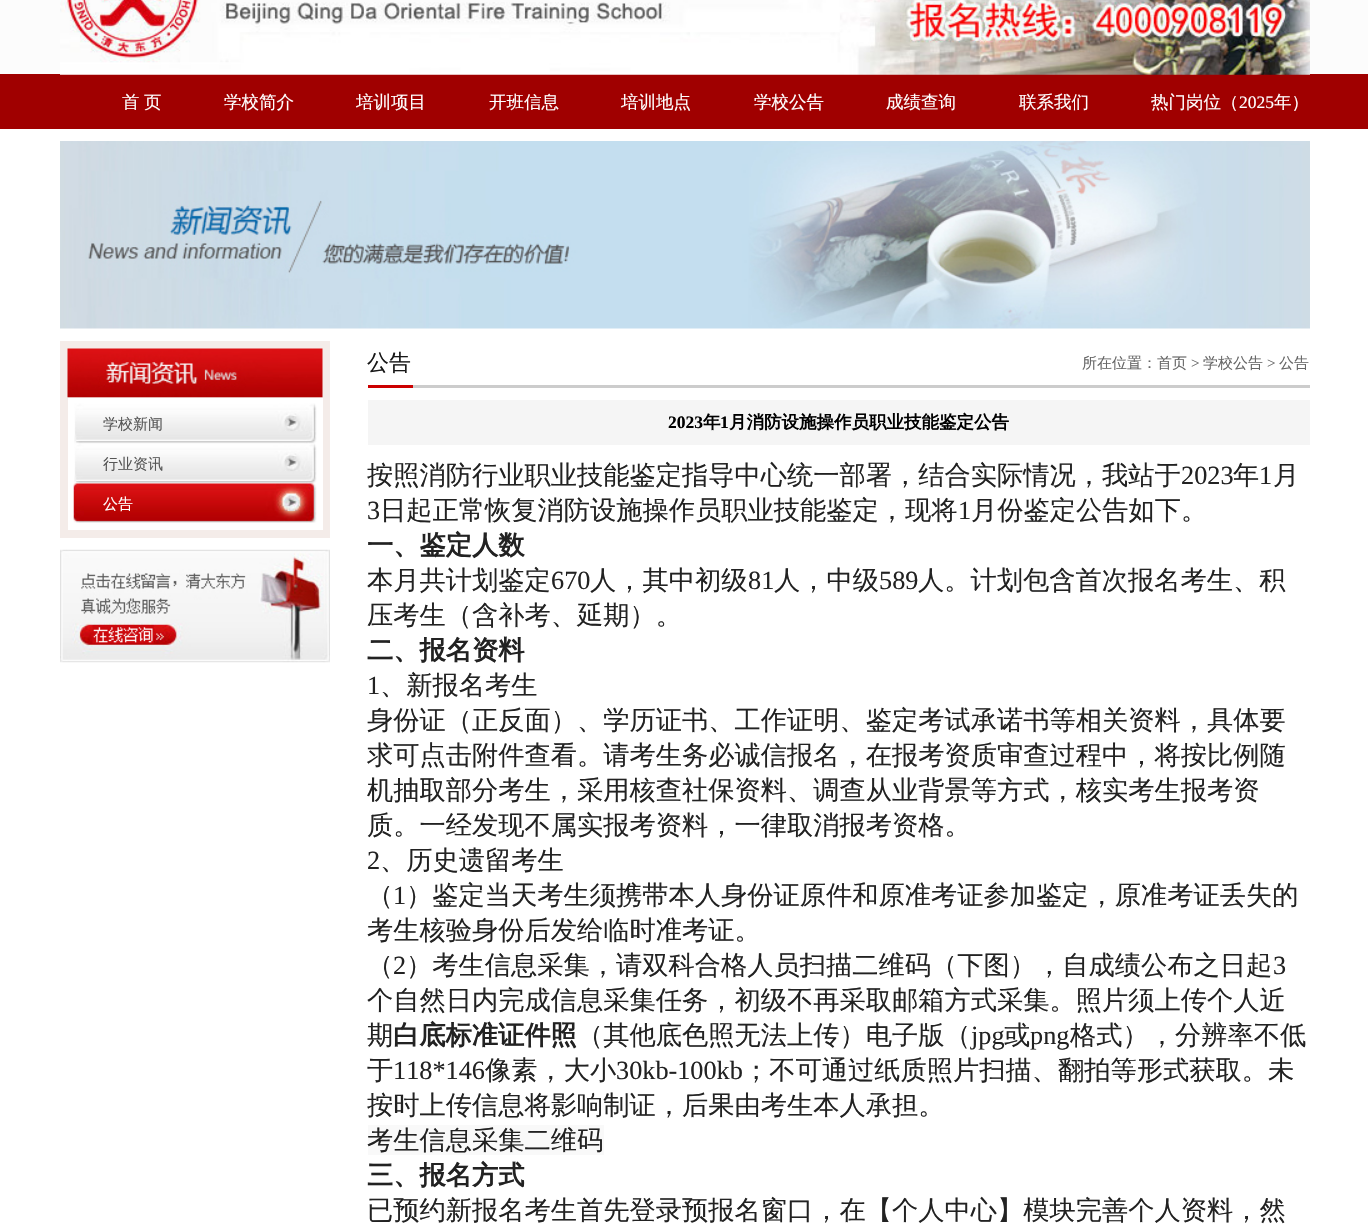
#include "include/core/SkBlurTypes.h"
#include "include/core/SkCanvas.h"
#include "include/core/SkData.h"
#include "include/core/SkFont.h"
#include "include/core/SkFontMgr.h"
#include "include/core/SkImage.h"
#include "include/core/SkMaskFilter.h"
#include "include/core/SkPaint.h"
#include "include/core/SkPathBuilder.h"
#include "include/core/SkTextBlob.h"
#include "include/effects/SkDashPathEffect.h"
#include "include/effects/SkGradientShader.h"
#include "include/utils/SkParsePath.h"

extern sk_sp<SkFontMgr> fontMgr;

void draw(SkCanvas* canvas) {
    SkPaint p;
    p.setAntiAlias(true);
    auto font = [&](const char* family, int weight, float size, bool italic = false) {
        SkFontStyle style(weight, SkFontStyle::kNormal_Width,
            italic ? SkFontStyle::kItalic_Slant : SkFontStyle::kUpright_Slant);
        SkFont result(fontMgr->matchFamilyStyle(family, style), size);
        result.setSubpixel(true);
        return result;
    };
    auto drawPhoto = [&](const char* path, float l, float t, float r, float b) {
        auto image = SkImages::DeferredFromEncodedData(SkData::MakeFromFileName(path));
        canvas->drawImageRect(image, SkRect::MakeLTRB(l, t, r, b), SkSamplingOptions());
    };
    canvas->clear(0xFFFFFFFF);
    p.setColor(0xFFFCFCFC);
    canvas->drawRect(SkRect::MakeLTRB(0, 0, 1368, 74), p);
    p.setColor(0xFFA00000);
    canvas->drawRect(SkRect::MakeLTRB(0, 74, 1368, 129), p);
    drawPhoto("media/1.png", 60, 0, 1310, 75);
    auto font1 = font("WenQuanYi Zen Hei", 500, 17.5f);
    p.setColor(0xFFFFFFFF);
    {
        const struct { const char* s; float x, y; } items[] = {
            {"首", 122, 108},
            {"页", 144, 108},
            {"学校简介", 224, 108},
            {"培训项目", 356, 108},
            {"开班信息", 489, 108},
            {"培训地点", 621, 108},
            {"学校公告", 754, 108},
            {"成绩查询", 886, 108},
            {"联系我们", 1019, 108},
            {"热门岗位（", 1151, 108},
        };
        for (auto [s, x, y] : items) {
            canvas->drawString(s, x, y, font1, p);
        }
    }
    auto font2 = font("Liberation Serif", 400, 17.5f);
    canvas->drawString("2025", 1239, 108, font2, p);
    canvas->drawString("年）", 1274, 108, font1, p);
    drawPhoto("media/2.png", 60, 141, 1310, 329);
    p.setColor(0xFFF4ECE9);
    canvas->drawRect(SkRect::MakeLTRB(60, 341, 330, 538), p);
    drawPhoto("media/3.png", 67, 348, 323, 398);
    p.setColor(0xFFFFFFFF);
    canvas->drawRect(SkRect::MakeLTRB(68, 398, 323, 530), p);
    drawPhoto("media/4.png", 74, 403, 317, 444);
    auto font3 = font("WenQuanYi Zen Hei", 500, 15);
    p.setColor(0xFF565656);
    canvas->drawString("学校新闻", 103, 429, font3, p);
    drawPhoto("media/5.png", 74, 443, 317, 484);
    canvas->drawString("行业资讯", 103, 469, font3, p);
    drawPhoto("media/6.png", 73, 483, 317, 523);
    p.setColor(0xFFFFFFFF);
    canvas->drawString("公告", 103, 509, font3, p);
    drawPhoto("media/7.png", 60, 549, 330, 663);
    p.setColor(0xFFCCCCCC);
    canvas->drawRect(SkRect::MakeLTRB(413, 385, 1310, 388), p);
    p.setColor(0xFFCC0000);
    canvas->drawRect(SkRect::MakeLTRB(368, 385, 413, 388), p);
    auto font4 = font("WenQuanYi Zen Hei", 500, 22);
    p.setColor(0xFF171717);
    canvas->drawString("公告", 367, 370, font4, p);
    p.setColor(0xFF666666);
    canvas->drawString("所在位置：首页", 1082, 368, font3, p);
    auto font5 = font("Liberation Serif", 400, 15);
    canvas->drawString(">", 1191, 368, font5, p);
    canvas->drawString("学校公告", 1203, 368, font3, p);
    canvas->drawString(">", 1267, 368, font5, p);
    canvas->drawString("公告", 1279, 368, font3, p);
    p.setColor(0xFFF5F5F5);
    canvas->drawRect(SkRect::MakeLTRB(368, 400, 1310, 445), p);
    auto font6 = font("Liberation Serif", 700, 17.5f);
    p.setColor(0xFF000000);
    canvas->drawString("2023", 668, 428, font6, p);
    auto font7 = font("WenQuanYi Zen Hei", 700, 17.5f);
    canvas->drawString("年", 703, 428, font7, p);
    canvas->drawString("1", 720, 428, font6, p);
    canvas->drawString("月消防设施操作员职业技能鉴定公告", 729, 428, font7, p);
    auto font8 = font("WenQuanYi Zen Hei", 500, 26.25f);
    p.setColor(0xFF222222);
    canvas->drawString("按照消防行业职业技能鉴定指导中心统一部署，结合实际情况，我站于", 367, 484, font8, p);
    auto font9 = font("Liberation Serif", 400, 26.25f);
    canvas->drawString("2023", 1181, 484, font9, p);
    canvas->drawString("年", 1233, 484, font8, p);
    canvas->drawString("1", 1259, 484, font9, p);
    canvas->drawString("月", 1273, 484, font8, p);
    canvas->drawString("3", 367, 519, font9, p);
    canvas->drawString("日起正常恢复消防设施操作员职业技能鉴定，现将", 380, 519, font8, p);
    canvas->drawString("1", 958, 519, font9, p);
    canvas->drawString("月份鉴定公告如下。", 971, 519, font8, p);
    auto font10 = font("WenQuanYi Zen Hei", 700, 26.25f);
    canvas->drawString("一、鉴定人数", 367, 554, font10, p);
    canvas->drawString("本月共计划鉴定", 367, 589, font8, p);
    canvas->drawString("670", 551, 589, font9, p);
    canvas->drawString("人，其中初级", 590, 589, font8, p);
    canvas->drawString("81", 748, 589, font9, p);
    canvas->drawString("人，中级", 774, 589, font8, p);
    canvas->drawString("589", 879, 589, font9, p);
    canvas->drawString("人。计划包含首次报名考生、积", 918, 589, font8, p);
    canvas->drawString("压考生（含补考、延期）。", 367, 624, font8, p);
    canvas->drawString("二、报名资料", 367, 659, font10, p);
    canvas->drawString("1", 367, 694, font9, p);
    {
        const struct { const char* s; float x, y; } items[] = {
            {"、新报名考生", 380, 694},
            {"身份证（正反面）、学历证书、工作证明、鉴定考试承诺书等相关资料，具体要", 367, 729},
            {"求可点击附件查看。请考生务必诚信报名，在报考资质审查过程中，将按比例随", 367, 764},
            {"机抽取部分考生，采用核查社保资料、调查从业背景等方式，核实考生报考资", 367, 799},
            {"质。一经发现不属实报考资料，一律取消报考资格。", 367, 834},
        };
        for (auto [s, x, y] : items) {
            canvas->drawString(s, x, y, font8, p);
        }
    }
    canvas->drawString("2", 367, 869, font9, p);
    canvas->drawString("、历史遗留考生", 380, 869, font8, p);
    canvas->drawString("（", 367, 904, font8, p);
    canvas->drawString("1", 393, 904, font9, p);
    {
        const struct { const char* s; float x, y; } items[] = {
            {"）鉴定当天考生须携带本人身份证原件和原准考证参加鉴定，原准考证丢失的", 406, 904},
            {"考生核验身份后发给临时准考证。", 367, 939},
            {"（", 367, 974},
        };
        for (auto [s, x, y] : items) {
            canvas->drawString(s, x, y, font8, p);
        }
    }
    canvas->drawString("2", 393, 974, font9, p);
    canvas->drawString("）考生信息采集，请双科合格人员扫描二维码（下图），自成绩公布之日起", 406, 974, font8, p);
    canvas->drawString("3", 1273, 974, font9, p);
    canvas->drawString("个自然日内完成信息采集任务，初级不再采取邮箱方式采集。照片须上传个人近", 367, 1009, font8, p);
    canvas->drawString("期", 367, 1044, font8, p);
    canvas->drawString("白底标准证件照", 393, 1044, font10, p);
    canvas->drawString("（其他底色照无法上传）电子版（", 577, 1044, font8, p);
    canvas->drawString("jpg", 971, 1044, font9, p);
    canvas->drawString("或", 1004, 1044, font8, p);
    canvas->drawString("png", 1030, 1044, font9, p);
    canvas->drawString("格式），分辨率不低", 1070, 1044, font8, p);
    canvas->drawString("于", 367, 1079, font8, p);
    canvas->drawString("118*146", 393, 1079, font9, p);
    canvas->drawString("像素，大小", 485, 1079, font8, p);
    canvas->drawString("30kb-100kb", 616, 1079, font9, p);
    canvas->drawString("；不可通过纸质照片扫描、翻拍等形式获取。未", 743, 1079, font8, p);
    canvas->drawString("按时上传信息将影响制证，后果由考生本人承担。", 367, 1114, font8, p);
    p.setColor(0xFFF9F9F9);
    canvas->drawRect(SkRect::MakeLTRB(368, 1125, 604, 1155), p);
    p.setColor(0xFF222222);
    canvas->drawString("考生信息采集二维码", 367, 1149, font8, p);
    canvas->drawString("三、报名方式", 367, 1184, font10, p);
    canvas->drawString("已预约新报名考生首先登录预报名窗口，在【个人中心】模块完善个人资料，然", 367, 1219, font8, p);
}
